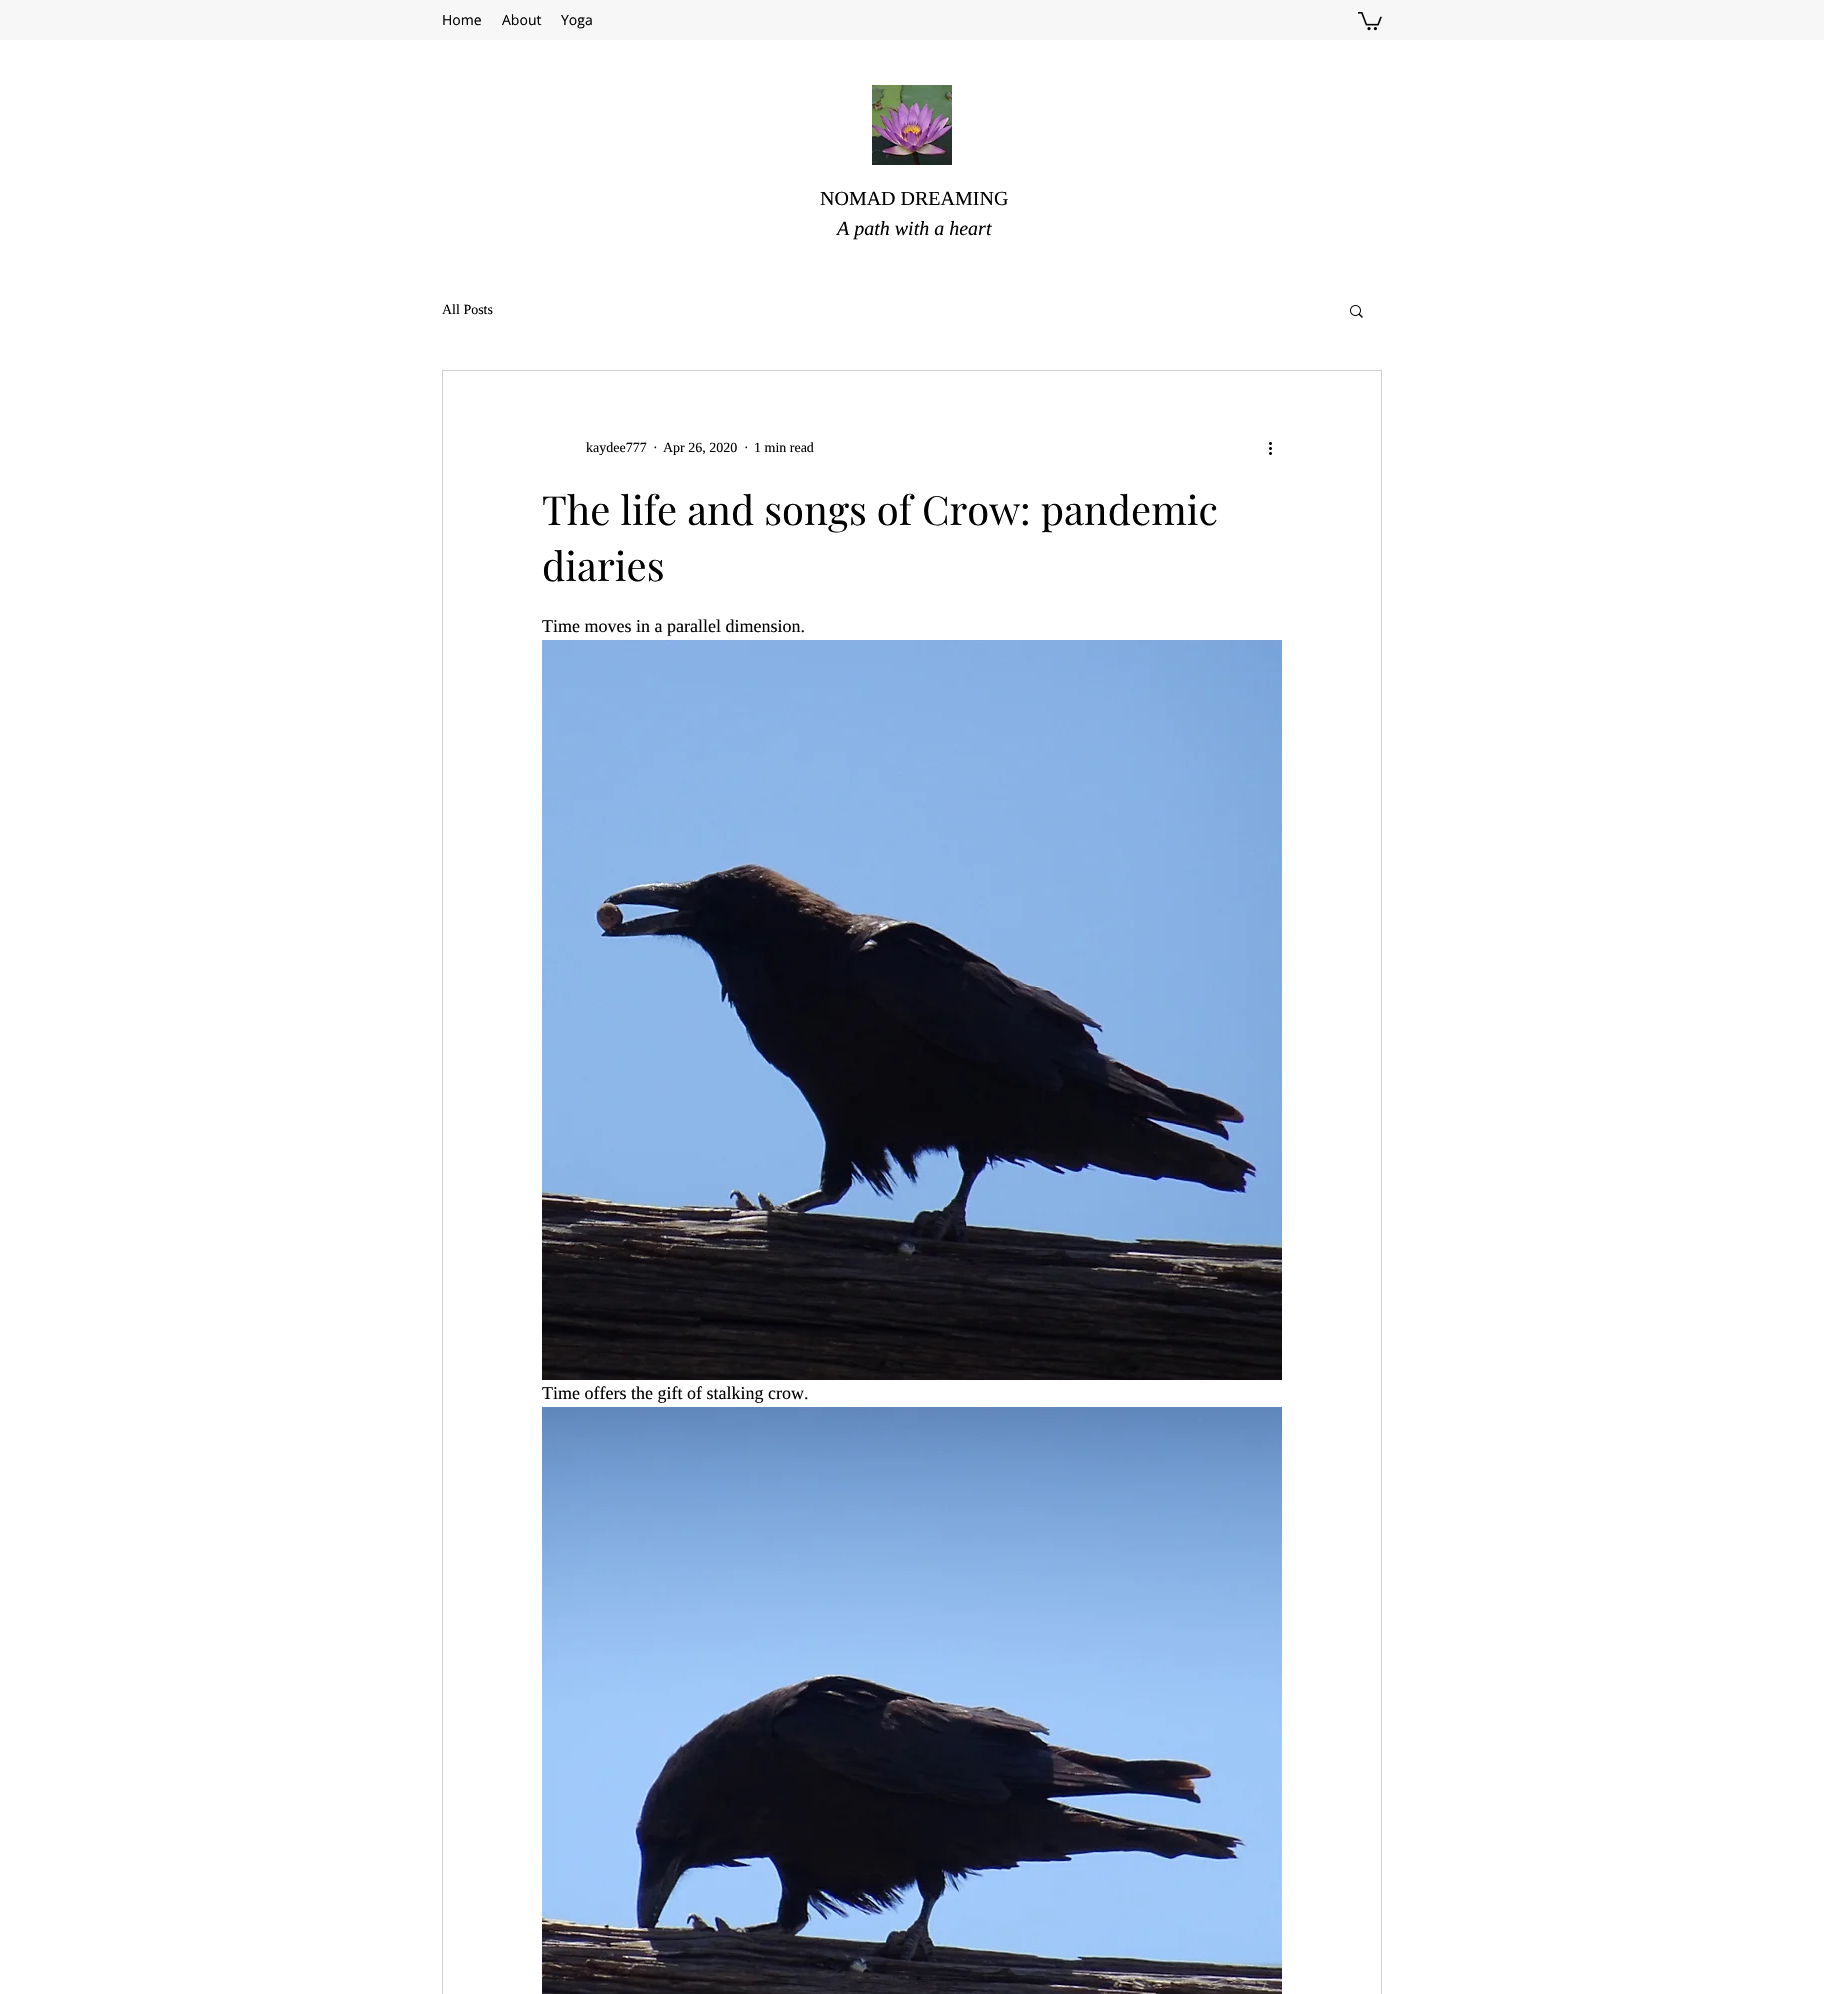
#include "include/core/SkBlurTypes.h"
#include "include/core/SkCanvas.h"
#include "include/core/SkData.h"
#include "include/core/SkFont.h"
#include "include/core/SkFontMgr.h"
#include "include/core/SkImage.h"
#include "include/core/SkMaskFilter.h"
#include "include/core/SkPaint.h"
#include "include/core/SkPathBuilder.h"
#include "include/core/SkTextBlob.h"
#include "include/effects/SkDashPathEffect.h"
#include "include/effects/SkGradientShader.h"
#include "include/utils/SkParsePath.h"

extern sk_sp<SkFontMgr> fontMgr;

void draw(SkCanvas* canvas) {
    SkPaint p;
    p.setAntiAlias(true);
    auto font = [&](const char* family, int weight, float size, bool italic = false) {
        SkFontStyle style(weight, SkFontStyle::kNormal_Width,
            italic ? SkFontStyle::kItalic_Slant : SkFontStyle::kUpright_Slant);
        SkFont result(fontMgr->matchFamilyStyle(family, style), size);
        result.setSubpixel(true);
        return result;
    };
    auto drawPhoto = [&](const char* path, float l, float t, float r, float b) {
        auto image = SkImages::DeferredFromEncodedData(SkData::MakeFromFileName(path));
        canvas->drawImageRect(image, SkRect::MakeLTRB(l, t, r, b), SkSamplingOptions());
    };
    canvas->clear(0xFFFFFFFF);
    p.setColor(0xFFF7F7F7);
    canvas->drawRect(SkRect::MakeLTRB(0, 0, 1824, 40), p);
    auto font1 = font("Open Sans", 400, 14);
    p.setColor(0xFF000000);
    {
        const struct { const char* s; float x, y; } items[] = {
            {"Home", 442, 25},
            {"About", 502, 25},
            {"Yoga", 561, 25},
        };
        for (auto [s, x, y] : items) {
            canvas->drawString(s, x, y, font1, p);
        }
    }
    drawPhoto("media/1.png", 1358, 12, 1382, 31);
    drawPhoto("media/2.png", 872, 85, 952, 165);
    auto font2 = font("Liberation Serif", 400, 20);
    canvas->drawString("NOMAD DREAMING", 820, 205, font2, p);
    auto font3 = font("Liberation Serif", 400, 20, true);
    canvas->drawString("A path with a heart", 837, 235, font3, p);
    auto font4 = font("Liberation Serif", 400, 14);
    canvas->drawString("All Posts", 442, 314, font4, p);
    drawPhoto("media/3.png", 1350, 305, 1363, 318);
    p.setStyle(SkPaint::kStroke_Style);
    p.setStrokeWidth(1);
    p.setColor(0xFFCFCFCF);
    canvas->drawRect(SkRect::MakeLTRB(442.5f, 370.5f, 1381.5f, 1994.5f), p);
    p.setStyle(SkPaint::kFill_Style);
    p.setColor(0xFF000000);
    {
        const struct { const char* s; float x, y; } items[] = {
            {"kaydee777", 586, 452},
            {"·", 653, 452},
            {"Apr 26, 2020", 663, 452},
            {"·", 744, 452},
            {"1 min read", 754, 452},
        };
        for (auto [s, x, y] : items) {
            canvas->drawString(s, x, y, font4, p);
        }
    }
    drawPhoto("media/4.png", 1269, 442, 1272, 455);
    auto font5 = font("Playfair Display", 400, 40);
    canvas->drawString("The life and songs of Crow: pandemic", 542, 525, font5, p);
    canvas->drawString("diaries", 542, 581, font5, p);
    auto font6 = font("Liberation Serif", 400, 18);
    canvas->drawString("Time moves in a parallel dimension.", 542, 632, font6, p);
    drawPhoto("media/5.png", 542, 640, 1282, 1380);
    canvas->drawString("Time offers the gift of stalking crow.", 542, 1399, font6, p);
    drawPhoto("media/6.png", 542, 1407, 1282, 1994);
}
